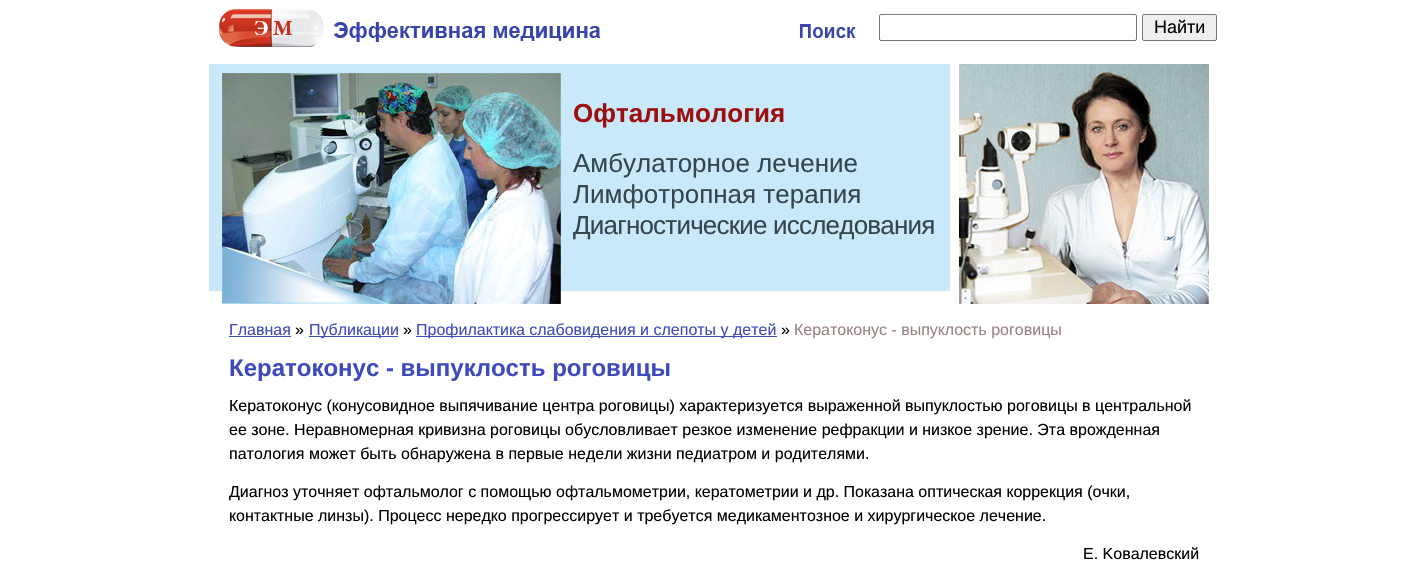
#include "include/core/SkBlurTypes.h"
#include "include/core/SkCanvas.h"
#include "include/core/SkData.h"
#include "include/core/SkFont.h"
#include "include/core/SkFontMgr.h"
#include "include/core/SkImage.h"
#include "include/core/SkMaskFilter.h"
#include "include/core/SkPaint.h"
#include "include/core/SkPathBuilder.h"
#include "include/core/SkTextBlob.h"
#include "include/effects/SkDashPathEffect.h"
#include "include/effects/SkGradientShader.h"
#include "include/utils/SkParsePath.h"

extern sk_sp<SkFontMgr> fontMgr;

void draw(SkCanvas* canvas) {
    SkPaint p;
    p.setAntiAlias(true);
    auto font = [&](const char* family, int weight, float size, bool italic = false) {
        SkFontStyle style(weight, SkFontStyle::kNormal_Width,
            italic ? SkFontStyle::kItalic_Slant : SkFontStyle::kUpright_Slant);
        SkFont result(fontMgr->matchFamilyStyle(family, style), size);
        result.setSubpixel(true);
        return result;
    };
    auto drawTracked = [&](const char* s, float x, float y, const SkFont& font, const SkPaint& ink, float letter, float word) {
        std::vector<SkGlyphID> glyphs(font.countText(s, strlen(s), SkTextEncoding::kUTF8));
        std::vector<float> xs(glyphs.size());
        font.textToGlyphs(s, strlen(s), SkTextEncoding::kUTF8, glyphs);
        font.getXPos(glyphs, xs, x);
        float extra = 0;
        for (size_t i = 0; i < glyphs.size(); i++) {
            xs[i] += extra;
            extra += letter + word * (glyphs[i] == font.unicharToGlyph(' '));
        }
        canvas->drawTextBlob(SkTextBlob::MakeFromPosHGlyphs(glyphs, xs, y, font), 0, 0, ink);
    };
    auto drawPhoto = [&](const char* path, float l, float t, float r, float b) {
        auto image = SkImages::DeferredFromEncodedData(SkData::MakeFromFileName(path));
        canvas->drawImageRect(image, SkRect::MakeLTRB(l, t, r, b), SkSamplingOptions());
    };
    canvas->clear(0xFFFFFFFF);
    drawPhoto("media/1.png", 218, 9, 856, 47);
    p.setStyle(SkPaint::kStroke_Style);
    p.setStrokeWidth(1);
    p.setColor(0xFF767676);
    canvas->drawRoundRect(SkRect::MakeLTRB(879.5f, 14.5f, 1136.5f, 40.5f), 1.5f, 1.5f, p);
    p.setStyle(SkPaint::kFill_Style);
    p.setColor(0xFFEFEFEF);
    canvas->drawRoundRect(SkRect::MakeLTRB(1142.5f, 14.5f, 1216.5f, 40.5f), 1.5f, 1.5f, p);
    p.setStyle(SkPaint::kStroke_Style);
    p.setColor(0xFF767676);
    canvas->drawRoundRect(SkRect::MakeLTRB(1142.5f, 14.5f, 1216.5f, 40.5f), 1.5f, 1.5f, p);
    auto font1 = font("Liberation Sans", 400, 18);
    p.setStyle(SkPaint::kFill_Style);
    p.setColor(0xFF000000);
    canvas->drawString("Найти", 1154, 33, font1, p);
    drawPhoto("media/2.png", 209, 64, 953, 304);
    auto font2 = font("Liberation Sans", 700, 26);
    p.setColor(0xFF9B100D);
    canvas->drawString("Офтальмология", 573, 122, font2, p);
    auto font3 = font("Liberation Sans", 400, 26);
    p.setColor(0xFF35464E);
    canvas->drawString("Амбулаторное лечение", 573, 172, font3, p);
    canvas->drawString("Лимфотропная терапия", 573, 203, font3, p);
    drawTracked("Диагностические исследования", 573, 234, font3, p, -0.8f, 0);
    drawPhoto("media/3.png", 959, 64, 1209, 304);
    auto font4 = font("Liberation Sans", 400, 16);
    p.setColor(0xFF3F4BBC);
    canvas->drawString("Главная", 229, 335, font4, p);
    canvas->drawRect(SkRect::MakeLTRB(229, 336, 291, 337), p);
    p.setColor(0xFF000000);
    canvas->drawString("»", 295, 335, font4, p);
    p.setColor(0xFF3F4BBC);
    canvas->drawRect(SkRect::MakeLTRB(309, 336, 398, 337), p);
    canvas->drawString("Публикации", 309, 335, font4, p);
    p.setColor(0xFF000000);
    canvas->drawString("»", 403, 335, font4, p);
    p.setColor(0xFF3F4BBC);
    canvas->drawRect(SkRect::MakeLTRB(416, 336, 777, 337), p);
    canvas->drawString("Профилактика слабовидения и слепоты у детей", 416, 335, font4, p);
    p.setColor(0xFF000000);
    canvas->drawString("»", 781, 335, font4, p);
    p.setColor(0xFF988383);
    canvas->drawString("Кератоконус - выпуклость роговицы", 794, 335, font4, p);
    auto font5 = font("Liberation Sans", 700, 24);
    p.setColor(0xFF3F4BBC);
    canvas->drawString("Кератоконус - выпуклость роговицы", 229, 376, font5, p);
    p.setColor(0xFF000000);
    {
        const struct { const char* s; float x, y; } items[] = {
            {"Кератоконус (конусовидное выпячивание центра роговицы) характеризуется выраженной выпуклостью роговицы в центральной", 229, 411},
            {"ее зоне. Неравномерная кривизна роговицы обусловливает резкое изменение рефракции и низкое зрение. Эта врожденная", 229, 435},
            {"патология может быть обнаружена в первые недели жизни педиатром и родителями.", 229, 459},
            {"Диагноз уточняет офтальмолог с помощью офтальмометрии, кератометрии и др. Показана оптическая коррекция (очки,", 229, 497},
            {"контактные линзы). Процесс нередко прогрессирует и требуется медикаментозное и хирургическое лечение.", 229, 521},
            {"E. Koвaлeвcкий", 1083, 559},
        };
        for (auto [s, x, y] : items) {
            canvas->drawString(s, x, y, font4, p);
        }
    }
}
